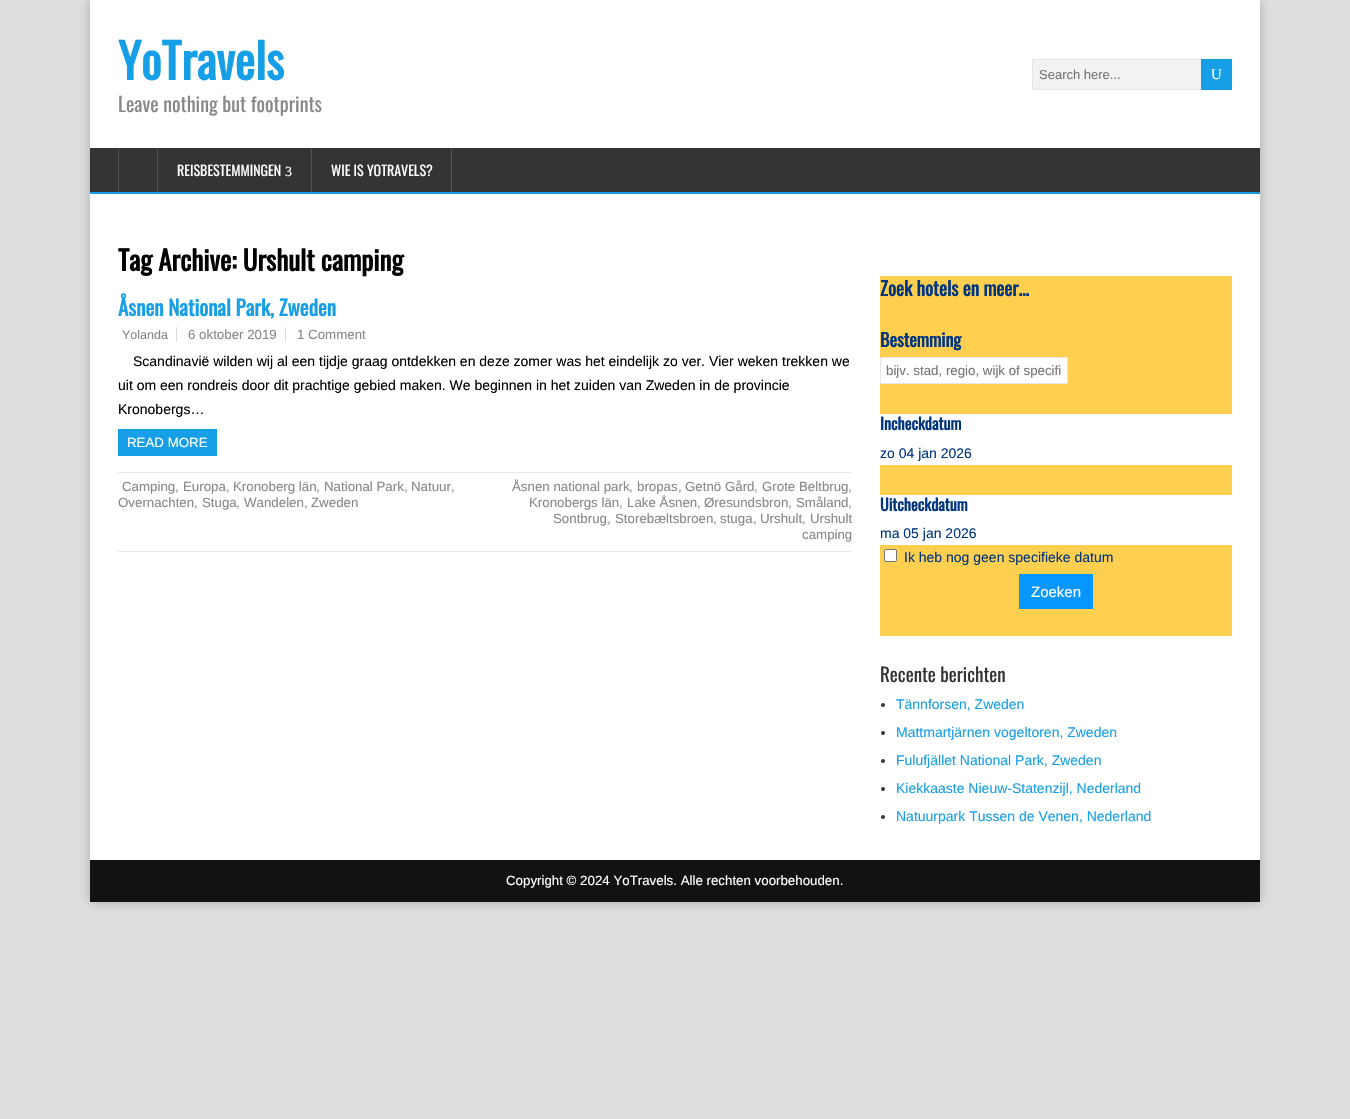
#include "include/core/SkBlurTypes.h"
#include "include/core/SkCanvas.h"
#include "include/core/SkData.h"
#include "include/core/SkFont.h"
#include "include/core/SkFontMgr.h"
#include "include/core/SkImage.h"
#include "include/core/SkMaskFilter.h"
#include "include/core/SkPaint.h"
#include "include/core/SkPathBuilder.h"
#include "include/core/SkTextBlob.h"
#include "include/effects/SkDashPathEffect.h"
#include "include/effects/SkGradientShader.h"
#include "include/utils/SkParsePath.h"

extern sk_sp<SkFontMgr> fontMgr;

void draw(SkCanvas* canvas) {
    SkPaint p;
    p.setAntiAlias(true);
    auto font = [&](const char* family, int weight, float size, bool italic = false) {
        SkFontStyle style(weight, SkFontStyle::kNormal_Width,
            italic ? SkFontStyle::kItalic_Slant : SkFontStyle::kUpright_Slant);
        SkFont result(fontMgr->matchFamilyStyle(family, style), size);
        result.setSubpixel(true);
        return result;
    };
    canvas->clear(0xFFDEDEDE);
    p.setColor(0xFFAAAAAA);
    p.setMaskFilter(SkMaskFilter::MakeBlur(kNormal_SkBlurStyle, 5));
    canvas->drawRect(SkRect::MakeLTRB(90, 0, 1260, 902), p);
    p.setMaskFilter(nullptr);
    p.setColor(0xFFFFFFFF);
    canvas->drawRect(SkRect::MakeLTRB(90, 0, 1260, 860), p);
    auto font1 = font("Oswald", 700, 48);
    p.setColor(0xFF169FE6);
    canvas->drawString("YoTravels", 118, 80, font1, p);
    p.setColor(0xFFF2F2F2);
    canvas->drawRect(SkRect::MakeLTRB(1033, 60, 1201, 89), p);
    p.setStyle(SkPaint::kStroke_Style);
    p.setStrokeWidth(1);
    p.setColor(0xFFE6E6E6);
    canvas->drawRect(SkRect::MakeLTRB(1032.5f, 59.5f, 1231.5f, 89.5f), p);
    auto font2 = font("Liberation Sans", 400, 13);
    p.setStyle(SkPaint::kFill_Style);
    p.setColor(0xFF757575);
    canvas->drawString("Search here...", 1039, 79, font2, p);
    p.setColor(0xFF169FE6);
    canvas->drawRect(SkRect::MakeLTRB(1201, 59, 1232, 90), p);
    auto font3 = font("Liberation Serif", 400, 15);
    p.setColor(0xFFFFFFFF);
    canvas->drawString("U", 1211, 79, font3, p);
    auto font4 = font("Oswald", 400, 20);
    p.setColor(0xFF888888);
    canvas->drawString("Leave nothing but footprints", 118, 112, font4, p);
    {
        const struct { float l, t, r, b; SkColor color; } items[] = {
            {90, 148, 1260, 192, 0xFF333333},
            {90, 192, 1260, 194, 0xFF169FE6},
            {157, 148, 158, 192, 0xFF535353},
            {118, 148, 119, 192, 0xFF535353},
            {311, 148, 312, 192, 0xFF535353},
        };
        for (auto [l, t, r, b, color] : items) {
            p.setColor(color);
            canvas->drawRect(SkRect::MakeLTRB(l, t, r, b), p);
        }
    }
    auto font5 = font("Oswald", 400, 14);
    p.setColor(0xFFFFFFFF);
    canvas->drawString("REISBESTEMMINGEN", 177, 176, font5, p);
    auto font6 = font("Liberation Serif", 400, 14);
    canvas->drawString("3", 285, 176, font6, p);
    p.setColor(0xFF535353);
    canvas->drawRect(SkRect::MakeLTRB(451, 148, 452, 192), p);
    p.setColor(0xFFFFFFFF);
    canvas->drawString("WIE IS YOTRAVELS?", 331, 176, font5, p);
    auto font7 = font("Oswald", 700, 27);
    p.setColor(0xFF000000);
    canvas->drawString("Tag Archive: Urshult camping", 118, 271, font7, p);
    p.setColor(0xFFE8E8E8);
    canvas->drawRect(SkRect::MakeLTRB(118, 551, 852, 552), p);
    auto font8 = font("Oswald", 700, 21);
    p.setColor(0xFF169FE6);
    canvas->drawString("Åsnen National Park, Zweden", 118, 316, font8, p);
    auto font9 = font("Liberation Sans", 400, 12.5f);
    p.setColor(0xFF888888);
    canvas->drawString("Yolanda", 122, 339, font9, p);
    auto font10 = font("Liberation Sans", 400, 13.3f);
    canvas->drawString("6 oktober 2019", 188, 339, font10, p);
    p.setColor(0xFFDBDBDB);
    canvas->drawRect(SkRect::MakeLTRB(176, 327, 177, 342), p);
    p.setColor(0xFF888888);
    canvas->drawString("1 Comment", 297, 339, font10, p);
    p.setColor(0xFFDBDBDB);
    canvas->drawRect(SkRect::MakeLTRB(285, 327, 286, 342), p);
    auto font11 = font("Liberation Sans", 400, 14);
    p.setColor(0xFF000000);
    {
        const struct { const char* s; float x, y; } items[] = {
            {"Scandinavië wilden wij al een tijdje graag ontdekken en deze zomer was het eindelijk zo ver. Vier weken trekken we", 133, 366},
            {"uit om een rondreis door dit prachtige gebied maken. We beginnen in het zuiden van Zweden in de provincie", 118, 390},
            {"Kronobergs…", 118, 414},
        };
        for (auto [s, x, y] : items) {
            canvas->drawString(s, x, y, font11, p);
        }
    }
    p.setColor(0xFF169FE6);
    canvas->drawRect(SkRect::MakeLTRB(118, 429, 217, 456), p);
    p.setColor(0xFFFFFFFF);
    canvas->drawString("READ MORE", 127, 447, font10, p);
    p.setColor(0xFFE8E8E8);
    canvas->drawRect(SkRect::MakeLTRB(118, 472, 852, 473), p);
    p.setColor(0xFF888888);
    canvas->drawString("Camping", 122, 491, font10, p);
    p.setColor(0xFF999999);
    canvas->drawString(",", 175, 491, font10, p);
    p.setColor(0xFF888888);
    canvas->drawString("Europa", 183, 491, font10, p);
    p.setColor(0xFF999999);
    canvas->drawString(",", 226, 491, font10, p);
    p.setColor(0xFF888888);
    canvas->drawString("Kronoberg län", 233, 491, font10, p);
    p.setColor(0xFF999999);
    canvas->drawString(",", 316, 491, font10, p);
    p.setColor(0xFF888888);
    canvas->drawString("National Park", 324, 491, font10, p);
    p.setColor(0xFF999999);
    canvas->drawString(",", 404, 491, font10, p);
    p.setColor(0xFF888888);
    canvas->drawString("Natuur", 411, 491, font10, p);
    p.setColor(0xFF999999);
    canvas->drawString(",", 451, 491, font10, p);
    p.setColor(0xFF888888);
    canvas->drawString("Overnachten", 118, 507, font10, p);
    p.setColor(0xFF999999);
    canvas->drawString(",", 194, 507, font10, p);
    p.setColor(0xFF888888);
    canvas->drawString("Stuga", 202, 507, font10, p);
    p.setColor(0xFF999999);
    canvas->drawString(",", 236, 507, font10, p);
    p.setColor(0xFF888888);
    canvas->drawString("Wandelen", 244, 507, font10, p);
    p.setColor(0xFF999999);
    canvas->drawString(",", 304, 507, font10, p);
    p.setColor(0xFF888888);
    canvas->drawString("Zweden", 311, 507, font10, p);
    canvas->drawString("Åsnen national park", 512, 491, font10, p);
    p.setColor(0xFF999999);
    canvas->drawString(",", 629, 491, font10, p);
    p.setColor(0xFF888888);
    canvas->drawString("bropas", 637, 491, font10, p);
    p.setColor(0xFF999999);
    canvas->drawString(",", 678, 491, font10, p);
    p.setColor(0xFF888888);
    canvas->drawString("Getnö Gård", 685, 491, font10, p);
    p.setColor(0xFF999999);
    canvas->drawString(",", 754, 491, font10, p);
    p.setColor(0xFF888888);
    canvas->drawString("Grote Beltbrug", 762, 491, font10, p);
    p.setColor(0xFF999999);
    canvas->drawString(",", 848, 491, font10, p);
    p.setColor(0xFF888888);
    canvas->drawString("Kronobergs län", 529, 507, font10, p);
    p.setColor(0xFF999999);
    canvas->drawString(",", 619, 507, font10, p);
    p.setColor(0xFF888888);
    canvas->drawString("Lake Åsnen", 627, 507, font10, p);
    p.setColor(0xFF999999);
    canvas->drawString(",", 697, 507, font10, p);
    p.setColor(0xFF888888);
    canvas->drawString("Øresundsbron", 704, 507, font10, p);
    p.setColor(0xFF999999);
    canvas->drawString(",", 788, 507, font10, p);
    p.setColor(0xFF888888);
    canvas->drawString("Småland", 796, 507, font10, p);
    p.setColor(0xFF999999);
    canvas->drawString(",", 848, 507, font10, p);
    p.setColor(0xFF888888);
    canvas->drawString("Sontbrug", 553, 523, font10, p);
    p.setColor(0xFF999999);
    canvas->drawString(",", 607, 523, font10, p);
    p.setColor(0xFF888888);
    canvas->drawString("Storebæltsbroen", 615, 523, font10, p);
    p.setColor(0xFF999999);
    canvas->drawString(",", 713, 523, font10, p);
    p.setColor(0xFF888888);
    canvas->drawString("stuga", 720, 523, font10, p);
    p.setColor(0xFF999999);
    canvas->drawString(",", 753, 523, font10, p);
    p.setColor(0xFF888888);
    canvas->drawString("Urshult", 760, 523, font10, p);
    p.setColor(0xFF999999);
    canvas->drawString(",", 802, 523, font10, p);
    p.setColor(0xFF888888);
    canvas->drawString("Urshult", 810, 523, font10, p);
    canvas->drawString("camping", 802, 539, font10, p);
    p.setColor(0xFFFFD04F);
    canvas->drawRect(SkRect::MakeLTRB(880, 276, 1232, 636), p);
    auto font12 = font("Oswald", 700, 19);
    p.setColor(0xFF003580);
    canvas->drawString("Zoek hotels en meer...", 880, 296, font12, p);
    auto font13 = font("Oswald", 700, 18);
    canvas->drawString("Bestemming", 880, 347, font13, p);
    p.setColor(0xFFFFFFFF);
    canvas->drawRect(SkRect::MakeLTRB(880.5f, 357.5f, 1067.5f, 383.5f), p);
    p.setStyle(SkPaint::kStroke_Style);
    p.setColor(0xFFE6E6E6);
    canvas->drawRect(SkRect::MakeLTRB(880.5f, 357.5f, 1067.5f, 383.5f), p);
    p.setStyle(SkPaint::kFill_Style);
    p.setColor(0xFF757575);
    canvas->drawString("bijv. stad, regio, wijk of specifi", 886, 375, font10, p);
    p.setColor(0xFFFFFFFF);
    canvas->drawRect(SkRect::MakeLTRB(880, 414, 1232, 465), p);
    auto font14 = font("Oswald", 700, 16);
    p.setColor(0xFF003580);
    canvas->drawString("Incheckdatum", 880, 430, font14, p);
    canvas->drawString("zo 04 jan 2026", 880, 458, font11, p);
    p.setColor(0xFFFFFFFF);
    canvas->drawRect(SkRect::MakeLTRB(880, 495, 1232, 545), p);
    p.setColor(0xFF003580);
    canvas->drawString("Uitcheckdatum", 880, 511, font14, p);
    canvas->drawString("ma 05 jan 2026", 880, 538, font11, p);
    p.setColor(0xFFFFFFFF);
    canvas->drawRoundRect(SkRect::MakeLTRB(884.5f, 549.5f, 896.5f, 561.5f), 1.5f, 1.5f, p);
    p.setStyle(SkPaint::kStroke_Style);
    p.setColor(0xFF767676);
    canvas->drawRoundRect(SkRect::MakeLTRB(884.5f, 549.5f, 896.5f, 561.5f), 1.5f, 1.5f, p);
    p.setStyle(SkPaint::kFill_Style);
    p.setColor(0xFF003580);
    canvas->drawString("Ik heb nog geen specifieke datum", 904, 562, font11, p);
    p.setColor(0xFF0896FF);
    canvas->drawRect(SkRect::MakeLTRB(1019, 574, 1093, 609), p);
    auto font15 = font("Liberation Sans", 400, 15);
    p.setColor(0xFFFFFFFF);
    canvas->drawString("Zoeken", 1031, 597, font15, p);
    auto font16 = font("Oswald", 400, 19);
    p.setColor(0xFF333333);
    canvas->drawString("Recente berichten", 880, 682, font16, p);
    canvas->drawCircle(883, 705, 2, p);
    p.setColor(0xFF169FE6);
    canvas->drawString("Tännforsen, Zweden", 896, 709, font11, p);
    p.setColor(0xFF333333);
    canvas->drawCircle(883, 733, 2, p);
    p.setColor(0xFF169FE6);
    canvas->drawString("Mattmartjärnen vogeltoren, Zweden", 896, 737, font11, p);
    p.setColor(0xFF333333);
    canvas->drawCircle(883, 761, 2, p);
    p.setColor(0xFF169FE6);
    canvas->drawString("Fulufjället National Park, Zweden", 896, 765, font11, p);
    p.setColor(0xFF333333);
    canvas->drawCircle(883, 789, 2, p);
    p.setColor(0xFF169FE6);
    canvas->drawString("Kiekkaaste Nieuw-Statenzijl, Nederland", 896, 793, font11, p);
    p.setColor(0xFF333333);
    canvas->drawCircle(883, 817, 2, p);
    p.setColor(0xFF169FE6);
    canvas->drawString("Natuurpark Tussen de Venen, Nederland", 896, 821, font11, p);
    p.setColor(0xFF121212);
    canvas->drawRect(SkRect::MakeLTRB(90, 860, 1260, 902), p);
    p.setColor(0xFFFFFFFF);
    canvas->drawString("Copyright © 2024 YoTravels. Alle rechten voorbehouden.", 506, 885, font10, p);
}
